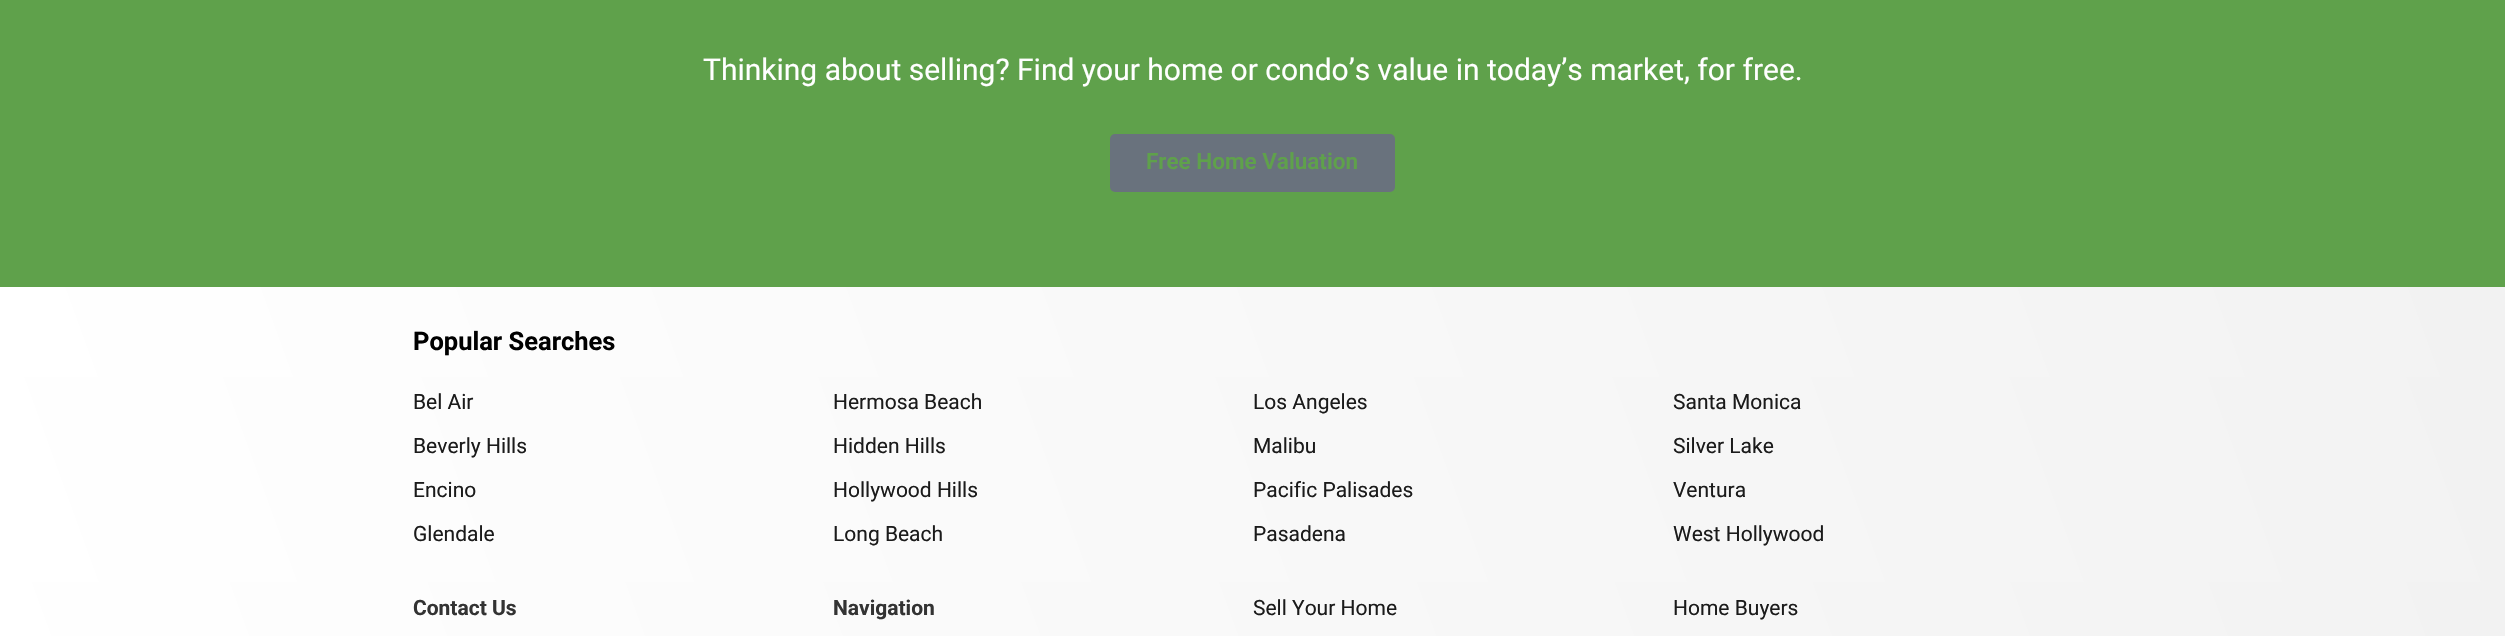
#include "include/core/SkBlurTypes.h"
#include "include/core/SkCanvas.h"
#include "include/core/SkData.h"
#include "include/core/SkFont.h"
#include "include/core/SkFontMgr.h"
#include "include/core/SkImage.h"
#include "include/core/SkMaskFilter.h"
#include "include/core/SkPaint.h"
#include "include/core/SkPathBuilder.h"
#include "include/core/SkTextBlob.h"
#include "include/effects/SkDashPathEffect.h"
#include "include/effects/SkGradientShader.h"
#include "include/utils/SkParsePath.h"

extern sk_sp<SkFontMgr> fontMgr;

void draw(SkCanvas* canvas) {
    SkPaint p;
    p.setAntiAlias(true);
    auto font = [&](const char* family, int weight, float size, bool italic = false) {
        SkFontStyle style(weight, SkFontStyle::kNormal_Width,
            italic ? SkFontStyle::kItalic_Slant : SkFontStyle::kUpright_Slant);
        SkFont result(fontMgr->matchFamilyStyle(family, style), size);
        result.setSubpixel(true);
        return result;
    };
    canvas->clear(0xFF5FA14B);
    auto font1 = font("Roboto", 400, 30);
    p.setColor(0xFFFFFFFF);
    canvas->drawString("Thinking about selling? Find your home or condo’s value in today’s market, for free.", 703, 80, font1, p);
    p.setColor(0xFF69727D);
    canvas->drawRoundRect(SkRect::MakeLTRB(1110, 134, 1395, 192), 5, 5, p);
    auto font2 = font("Roboto", 600, 22.5f);
    p.setColor(0xFF5FA14B);
    canvas->drawString("Free Home Valuation", 1146, 169, font2, p);
    {
        const SkColor colors[] = {0xFFF2F2F2, 0xFFFFFFFF};
        const float stops[] = {0, 1};
        const SkPoint ends[] = {{2373, -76}, {132, 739}};
        p.setShader(SkGradientShader::MakeLinear(ends, colors, stops, 2, SkTileMode::kClamp));
        p.setAlpha(255);
    }
    canvas->drawRect(SkRect::MakeLTRB(0, 287, 2505, 377), p);
    auto font3 = font("Roboto", 700, 25.5f);
    p.setShader(nullptr);
    p.setColor(0xFF000000);
    canvas->drawString("Popular Searches", 413, 350, font3, p);
    {
        const SkColor colors[] = {0xFFF2F2F2, 0xFFFFFFFF};
        const float stops[] = {0, 1};
        const SkPoint ends[] = {{2392, 65}, {113, 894}};
        p.setShader(SkGradientShader::MakeLinear(ends, colors, stops, 2, SkTileMode::kClamp));
        p.setAlpha(255);
    }
    canvas->drawRect(SkRect::MakeLTRB(0, 377, 2505, 582), p);
    auto font4 = font("Roboto", 400, 21);
    p.setShader(nullptr);
    p.setColor(0xFF1B1B1B);
    {
        const struct { const char* s; float x, y; } items[] = {
            {"Bel Air", 413, 409},
            {"Beverly Hills", 413, 453},
            {"Encino", 413, 497},
            {"Glendale", 413, 541},
            {"Hermosa Beach", 833, 409},
            {"Hidden Hills", 833, 453},
            {"Hollywood Hills", 833, 497},
            {"Long Beach", 833, 541},
            {"Los Angeles", 1253, 409},
            {"Malibu", 1253, 453},
            {"Pacific Palisades", 1253, 497},
            {"Pasadena", 1253, 541},
            {"Santa Monica", 1673, 409},
            {"Silver Lake", 1673, 453},
            {"Ventura", 1673, 497},
            {"West Hollywood", 1673, 541},
        };
        for (auto [s, x, y] : items) {
            canvas->drawString(s, x, y, font4, p);
        }
    }
    {
        const SkColor colors[] = {0xFFF2F2F2, 0xFFFFFFFF};
        const float stops[] = {0, 1};
        const SkPoint ends[] = {{2388, 261}, {117, 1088}};
        p.setShader(SkGradientShader::MakeLinear(ends, colors, stops, 2, SkTileMode::kClamp));
        p.setAlpha(255);
    }
    canvas->drawRect(SkRect::MakeLTRB(0, 582, 2505, 636), p);
    auto font5 = font("Roboto", 700, 21);
    p.setShader(nullptr);
    p.setColor(0xFF333333);
    canvas->drawString("Contact Us", 413, 615, font5, p);
    canvas->drawString("Navigation", 833, 615, font5, p);
    p.setColor(0xFF1B1B1B);
    canvas->drawString("Sell Your Home", 1253, 615, font4, p);
    canvas->drawString("Home Buyers", 1673, 615, font4, p);
}
